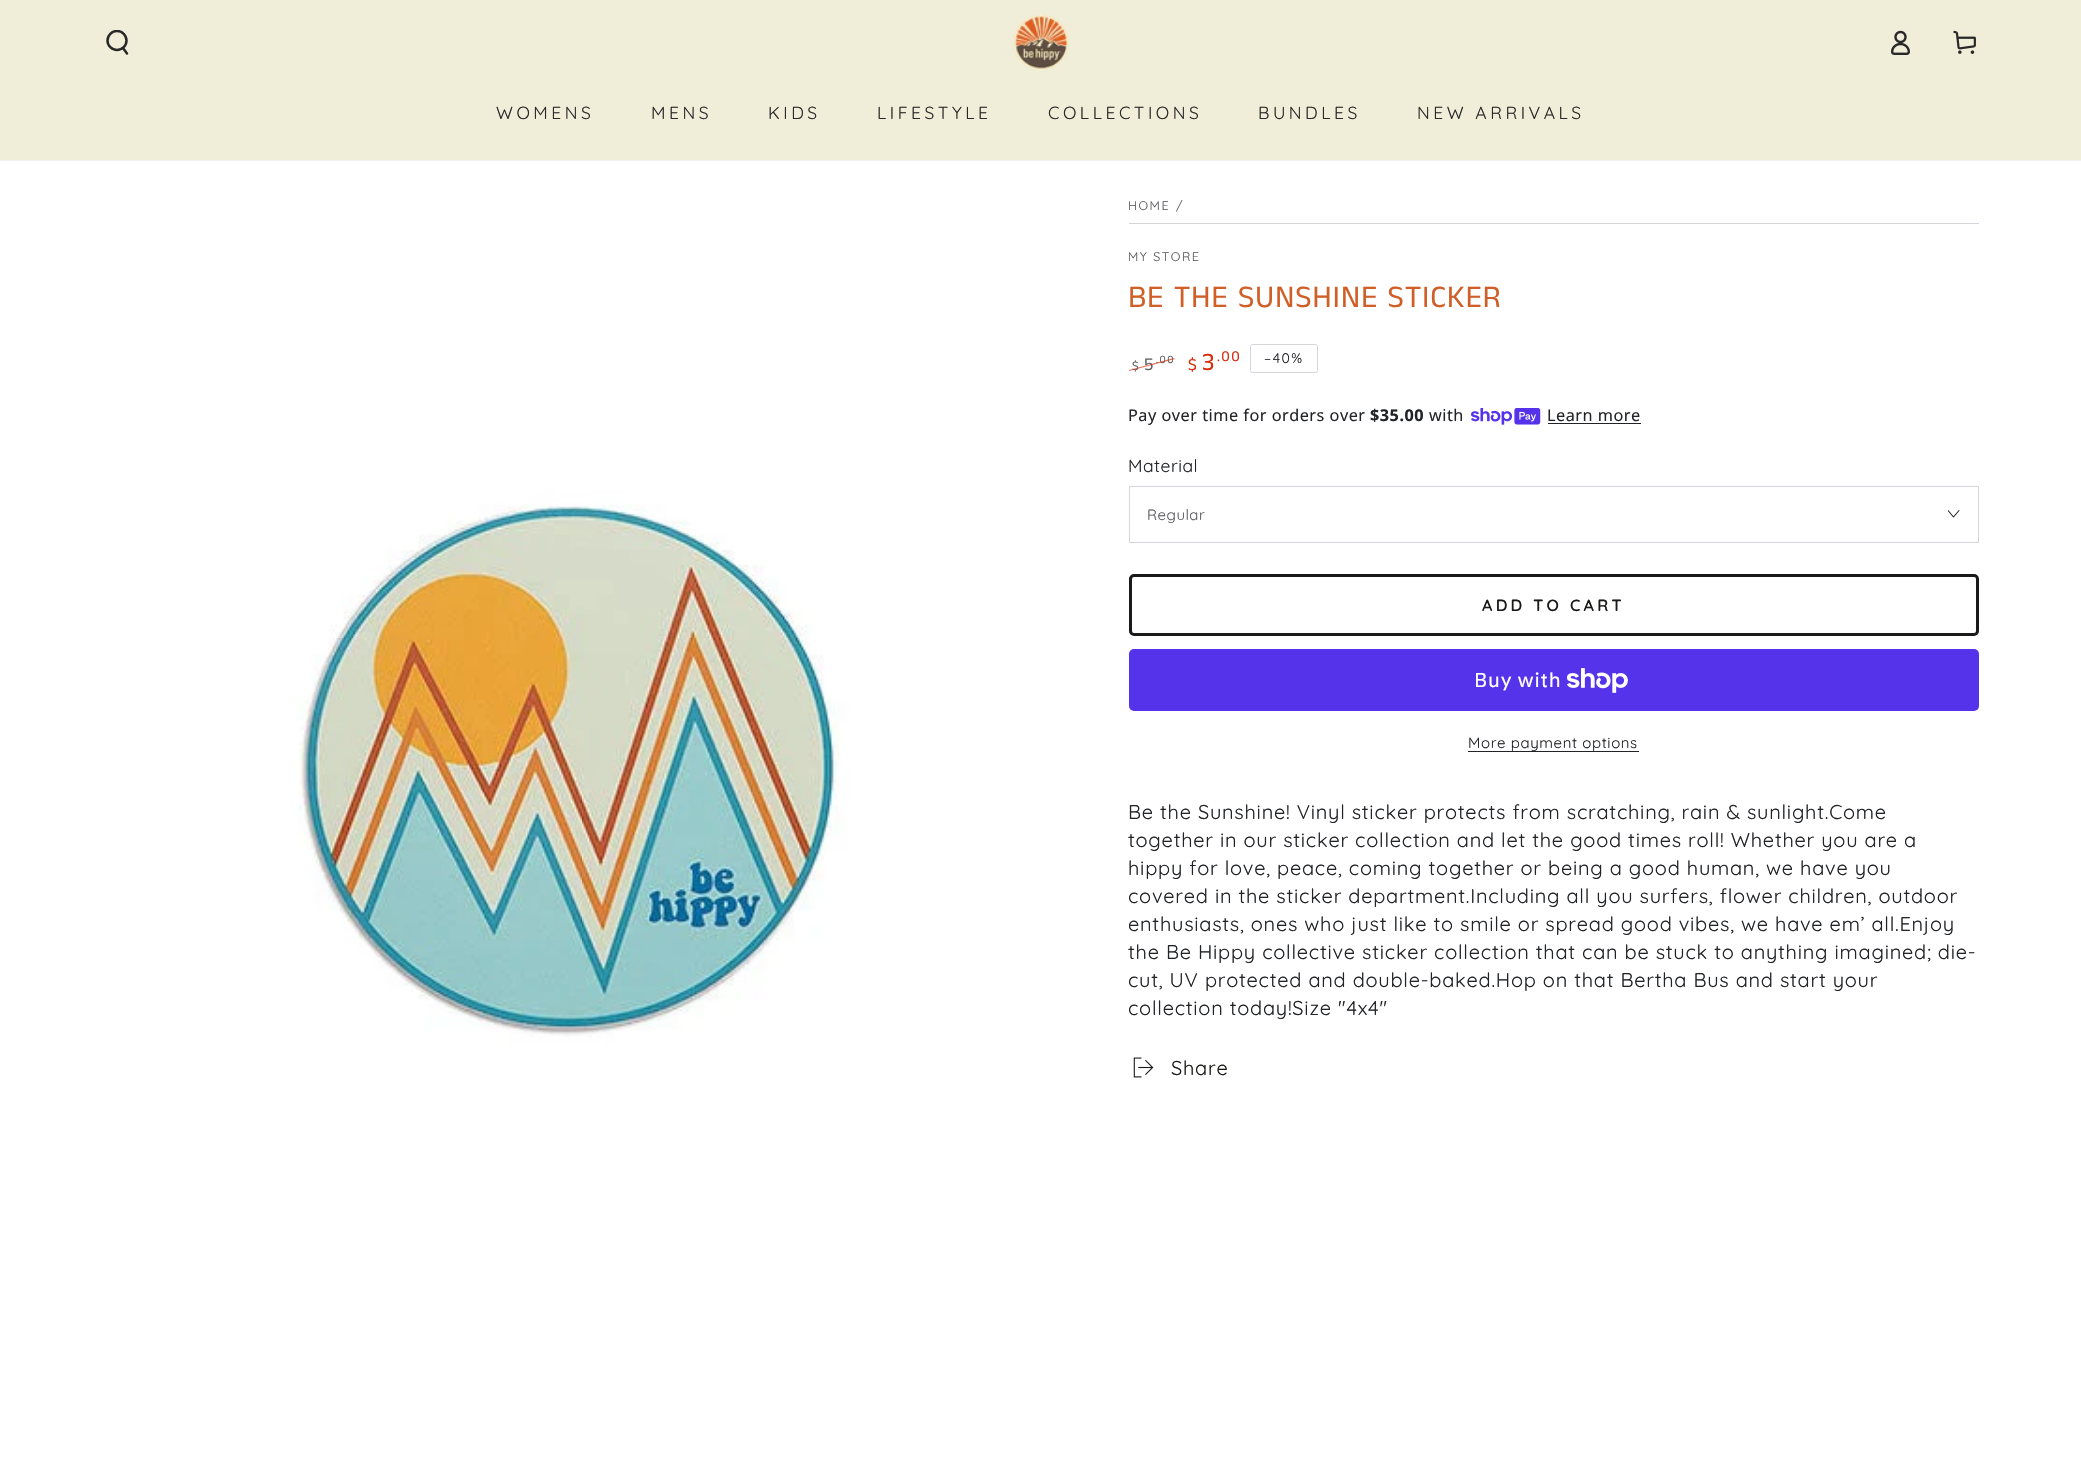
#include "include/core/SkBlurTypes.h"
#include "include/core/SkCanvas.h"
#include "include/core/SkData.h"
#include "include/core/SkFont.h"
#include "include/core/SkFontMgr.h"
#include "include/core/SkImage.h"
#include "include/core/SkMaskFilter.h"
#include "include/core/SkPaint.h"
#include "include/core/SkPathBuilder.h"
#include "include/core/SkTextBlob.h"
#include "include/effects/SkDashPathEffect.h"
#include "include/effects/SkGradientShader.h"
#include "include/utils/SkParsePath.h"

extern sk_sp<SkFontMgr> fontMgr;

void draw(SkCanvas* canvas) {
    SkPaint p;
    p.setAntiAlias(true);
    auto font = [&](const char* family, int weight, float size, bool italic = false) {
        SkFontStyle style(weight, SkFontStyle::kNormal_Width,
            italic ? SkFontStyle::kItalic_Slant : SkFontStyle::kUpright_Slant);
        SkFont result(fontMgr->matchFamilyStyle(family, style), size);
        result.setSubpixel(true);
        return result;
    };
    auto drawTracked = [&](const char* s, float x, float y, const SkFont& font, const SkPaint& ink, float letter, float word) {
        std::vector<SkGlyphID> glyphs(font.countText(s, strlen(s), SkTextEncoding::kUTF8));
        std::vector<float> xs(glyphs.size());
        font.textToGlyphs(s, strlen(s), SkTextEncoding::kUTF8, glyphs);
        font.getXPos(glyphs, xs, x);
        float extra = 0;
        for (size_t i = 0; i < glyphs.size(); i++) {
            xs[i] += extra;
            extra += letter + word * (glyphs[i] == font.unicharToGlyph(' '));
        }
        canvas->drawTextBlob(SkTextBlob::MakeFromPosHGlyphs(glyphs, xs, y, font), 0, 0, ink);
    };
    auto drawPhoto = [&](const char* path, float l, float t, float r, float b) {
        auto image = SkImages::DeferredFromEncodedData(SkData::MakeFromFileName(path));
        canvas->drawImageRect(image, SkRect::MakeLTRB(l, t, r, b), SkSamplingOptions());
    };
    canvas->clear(0xFFFFFFFF);
    p.setColor(0xFFF2F2F4);
    canvas->drawRect(SkRect::MakeLTRB(0, 160, 2081, 161), p);
    p.setColor(0xFFF0EED8);
    canvas->drawRect(SkRect::MakeLTRB(0, 0, 2081, 160), p);
    canvas->save();
    canvas->clipRect(SkRect::MakeLTRB(105, 30, 130, 55));
    p.setStyle(SkPaint::kStroke_Style);
    p.setStrokeWidth(2.5f);
    p.setColor(0xFF282828);
    canvas->drawCircle(117, 40.5f, 9.5f, p);
    canvas->restore();
    p.setStrokeCap(SkPaint::kRound_Cap);
    canvas->drawPath(SkPathBuilder().moveTo(123, 48).lineTo(127, 53.5f).detach(), p);
    drawPhoto("media/1.png", 1013, 15, 1069, 70);
    drawPhoto("media/2.png", 1891, 30, 1910, 55);
    drawPhoto("media/3.png", 1953, 30, 1976, 54);
    auto font1 = font("Quicksand", 400, 17.5f);
    p.setStyle(SkPaint::kFill_Style);
    {
        const struct { const char* s; float x, y; } items[] = {
            {"WOMENS", 496, 119},
            {"MENS", 651, 119},
            {"KIDS", 768, 119},
            {"LIFESTYLE", 877, 119},
            {"COLLECTIONS", 1048, 119},
            {"BUNDLES", 1258, 119},
            {"NEW ARRIVALS", 1417, 119},
        };
        for (auto [s, x, y] : items) {
            drawTracked(s, x, y, font1, p, 3.5f, 0);
        }
    }
    drawPhoto("media/4.png", 104, 161, 1041, 1379);
    p.setColor(0xFFD2D5D9);
    canvas->drawRect(SkRect::MakeLTRB(1129, 223, 1979, 224), p);
    auto font2 = font("Quicksand", 400, 12.5f);
    p.setColor(0xFF595A5C);
    {
        const struct { const char* s; float x, y; } items[] = {
            {"HOME", 1128, 210},
            {"/", 1176, 210},
            {"MY STORE", 1128, 261},
        };
        for (auto [s, x, y] : items) {
            drawTracked(s, x, y, font2, p, 1.5f, 0);
        }
    }
    auto font3 = font("Anek Tamil", 400, 31.5f);
    p.setColor(0xFFD05F27);
    drawTracked("BE THE SUNSHINE STICKER", 1128, 307, font3, p, 0.7f, 0);
    auto font4 = font("Anek Tamil", 400, 11);
    p.setColor(0xFF646567);
    drawTracked(".00", 1156, 363, font4, p, 1.5f, 0);
    auto font5 = font("Anek Tamil", 400, 13);
    drawTracked("$", 1132, 370, font5, p, 1.5f, 0);
    auto font6 = font("Anek Tamil", 400, 18);
    drawTracked("5", 1144, 370, font6, p, 1.5f, 0);
    p.setColor(0xB3D72C0D);
    canvas->drawPath(SkPathBuilder().moveTo(1129, 370).lineTo(1174, 358).lineTo(1175, 359).lineTo(1129, 371).close().detach(), p);
    auto font7 = font("Anek Tamil", 400, 17);
    p.setColor(0xFFD72C0D);
    drawTracked("$", 1188, 370, font7, p, 1.5f, 0);
    auto font8 = font("Anek Tamil", 400, 25);
    drawTracked("3", 1202, 370, font8, p, 1.5f, 0);
    auto font9 = font("Anek Tamil", 400, 15);
    drawTracked(".00", 1217, 361, font9, p, 1.5f, 0);
    p.setStyle(SkPaint::kStroke_Style);
    p.setStrokeWidth(1);
    p.setStrokeCap(SkPaint::kButt_Cap);
    p.setColor(0xFFD2D5D9);
    canvas->drawRoundRect(SkRect::MakeLTRB(1250.5f, 344.5f, 1317.5f, 372.5f), 2, 2, p);
    auto font10 = font("Quicksand", 400, 14);
    p.setStyle(SkPaint::kFill_Style);
    p.setColor(0xFF212326);
    drawTracked("–40%", 1264, 363, font10, p, 1.5f, 0);
    auto font11 = font("Noto Sans", 400, 16.25f);
    drawTracked("Pay over time for orders over", 1128, 421, font11, p, 0.5f, 0);
    auto font12 = font("Noto Sans", 700, 16.25f);
    drawTracked("$35.00", 1370, 421, font12, p, 0.5f, 0);
    drawTracked("with", 1429, 421, font11, p, 0.5f, 0);
    drawPhoto("media/5.png", 1471, 408, 1541, 425);
    drawTracked("Learn more", 1547, 421, font11, p, 0.5f, 0);
    canvas->drawRect(SkRect::MakeLTRB(1548, 423, 1641, 424), p);
    drawTracked("Material", 1128, 472, font1, p, 0.5f, 0);
    p.setStyle(SkPaint::kStroke_Style);
    p.setColor(0xFFD2D5D9);
    canvas->drawRect(SkRect::MakeLTRB(1129.5f, 486.5f, 1978.5f, 542.5f), p);
    auto font13 = font("Quicksand", 400, 15);
    p.setStyle(SkPaint::kFill_Style);
    p.setColor(0xFF595A5C);
    drawTracked("Regular", 1147, 520, font13, p, 0.5f, 0);
    drawPhoto("media/6.png", 1948, 510, 1960, 518);
    p.setStyle(SkPaint::kStroke_Style);
    p.setStrokeWidth(3);
    p.setColor(0xFF1A1B18);
    canvas->drawRoundRect(SkRect::MakeLTRB(1130.5f, 575.5f, 1977.5f, 634.5f), 3.5f, 3.5f, p);
    auto font14 = font("Quicksand", 600, 16.25f);
    p.setStyle(SkPaint::kFill_Style);
    drawTracked("ADD TO CART", 1482, 611, font14, p, 3.25f, 0);
    p.setColor(0xFF5433EB);
    canvas->drawRoundRect(SkRect::MakeLTRB(1129, 649, 1979, 711), 5, 5, p);
    auto font15 = font("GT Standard", 400, 20);
    p.setColor(0xFFFFFFFF);
    drawTracked("Buy with", 1474, 687, font15, p, 0.75f, 0);
    drawPhoto("media/7.png", 1566, 668, 1628, 693);
    p.setColor(0xFF212326);
    drawTracked("More payment options", 1468, 748, font13, p, 0.6f, 0);
    canvas->drawRect(SkRect::MakeLTRB(1468, 751, 1639, 752), p);
    auto font16 = font("Quicksand", 400, 20);
    {
        const struct { const char* s; float x, y; } items[] = {
            {"Be the Sunshine! Vinyl sticker protects from scratching, rain & sunlight.Come", 1128, 819},
            {"together in our sticker collection and let the good times roll! Whether you are a", 1128, 847},
            {"hippy for love, peace, coming together or being a good human, we have you", 1128, 875},
            {"covered in the sticker department.Including all you surfers, flower children, outdoor", 1128, 903},
            {"enthusiasts, ones who just like to smile or spread good vibes, we have em’ all.Enjoy", 1128, 931},
            {"the Be Hippy collective sticker collection that can be stuck to anything imagined; die-", 1128, 959},
            {"cut, UV protected and double-baked.Hop on that Bertha Bus and start your", 1128, 987},
            {"collection today!Size \"4x4\"", 1128, 1015},
        };
        for (auto [s, x, y] : items) {
            drawTracked(s, x, y, font16, p, 0.75f, 0);
        }
    }
    drawPhoto("media/8.png", 1133, 1057, 1154, 1078);
    p.setColor(0xFF1A1B18);
    drawTracked("Share", 1171, 1075, font16, p, 0.75f, 0);
}
